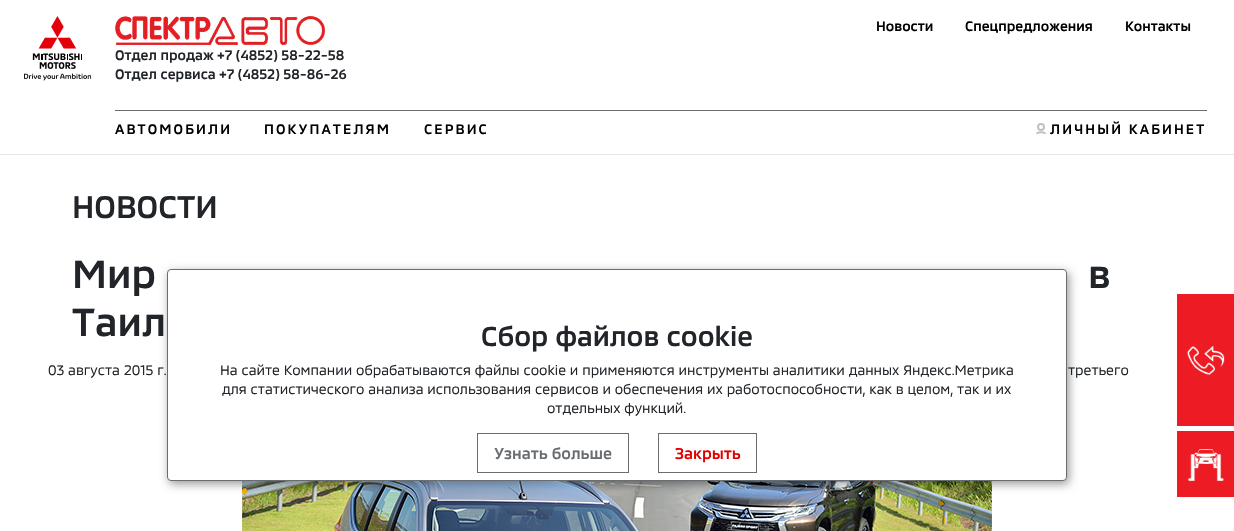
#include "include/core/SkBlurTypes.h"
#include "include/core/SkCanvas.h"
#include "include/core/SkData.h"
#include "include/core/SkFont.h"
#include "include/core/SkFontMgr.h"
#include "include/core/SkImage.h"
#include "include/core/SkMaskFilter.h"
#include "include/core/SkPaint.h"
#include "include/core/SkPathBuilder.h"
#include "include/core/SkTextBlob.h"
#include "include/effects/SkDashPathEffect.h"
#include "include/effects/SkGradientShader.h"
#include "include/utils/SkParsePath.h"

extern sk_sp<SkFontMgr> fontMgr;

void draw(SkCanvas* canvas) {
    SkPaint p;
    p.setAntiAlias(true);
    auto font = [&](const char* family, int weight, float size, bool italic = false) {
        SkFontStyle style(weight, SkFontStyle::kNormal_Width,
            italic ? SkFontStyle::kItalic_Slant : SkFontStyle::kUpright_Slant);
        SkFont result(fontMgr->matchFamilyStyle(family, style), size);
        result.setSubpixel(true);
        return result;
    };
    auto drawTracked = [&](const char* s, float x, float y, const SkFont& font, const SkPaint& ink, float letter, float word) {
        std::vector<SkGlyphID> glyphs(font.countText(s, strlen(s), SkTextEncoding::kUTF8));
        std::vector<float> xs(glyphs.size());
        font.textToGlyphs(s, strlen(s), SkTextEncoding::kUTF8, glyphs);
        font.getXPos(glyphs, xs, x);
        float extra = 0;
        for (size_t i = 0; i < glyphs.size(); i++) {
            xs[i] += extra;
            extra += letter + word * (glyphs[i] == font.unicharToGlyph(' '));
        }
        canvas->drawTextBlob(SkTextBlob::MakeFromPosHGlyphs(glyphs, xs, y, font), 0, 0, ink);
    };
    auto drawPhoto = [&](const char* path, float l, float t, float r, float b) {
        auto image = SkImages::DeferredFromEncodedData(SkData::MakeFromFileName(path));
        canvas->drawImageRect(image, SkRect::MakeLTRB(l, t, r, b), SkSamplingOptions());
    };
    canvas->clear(0xFFFFFFFF);
    p.setColor(0xFFE3E5E6);
    canvas->drawRect(SkRect::MakeLTRB(0, 154, 1234, 155), p);
    drawPhoto("media/1.png", 24, 16, 91, 81);
    p.setColor(0xFF686D71);
    canvas->drawRect(SkRect::MakeLTRB(115, 110, 1207, 111), p);
    auto font1 = font("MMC", 500, 14);
    p.setColor(0xFF000000);
    {
        const struct { const char* s; float x, y; } items[] = {
            {"Новости", 876, 31},
            {"Спецпредложения", 965, 31},
            {"Контакты", 1125, 31},
        };
        for (auto [s, x, y] : items) {
            canvas->drawString(s, x, y, font1, p);
        }
    }
    drawPhoto("media/2.png", 115, 16, 325, 45);
    p.setColor(0xFF212529);
    {
        const struct { const char* s; float x, y; } items[] = {
            {"Отдел продаж", 115, 60},
            {"+7 (4852) 58-22-58", 217, 60},
            {"Отдел сервиса", 115, 79},
            {"+7 (4852) 58-86-26", 219, 79},
        };
        for (auto [s, x, y] : items) {
            canvas->drawString(s, x, y, font1, p);
        }
    }
    p.setColor(0xFF000000);
    {
        const struct { const char* s; float x, y; } items[] = {
            {"АВТОМОБИЛИ", 115, 134},
            {"ПОКУПАТЕЛЯМ", 264, 134},
            {"СЕРВИС", 424, 134},
            {"ЛИЧНЫЙ КАБИНЕТ", 1050, 134},
        };
        for (auto [s, x, y] : items) {
            drawTracked(s, x, y, font1, p, 2.1f, 0);
        }
    }
    p.setStyle(SkPaint::kStroke_Style);
    p.setStrokeWidth(2);
    p.setColor(0xFFBFC2C4);
    canvas->drawCircle(1041, 127, 3, p);
    canvas->drawPath(SkPathBuilder().moveTo(1045, 134).cubicTo(1045, 131.5f, 1037, 131.5f, 1037, 134).detach(), p);
    auto font2 = font("MMC", 500, 32);
    p.setStyle(SkPaint::kFill_Style);
    p.setColor(0xFF212529);
    canvas->drawString("НОВОСТИ", 72, 218, font2, p);
    auto font3 = font("MMC", 500, 40);
    {
        const struct { const char* s; float x, y; } items[] = {
            {"Мир", 72, 288},
            {"в", 1088, 288},
            {"Таил", 72, 336},
        };
        for (auto [s, x, y] : items) {
            canvas->drawString(s, x, y, font3, p);
        }
    }
    auto font4 = font("MMC", 400, 14);
    canvas->drawString("03 августа 2015 г.", 48, 375, font4, p);
    canvas->drawString("третьего", 1068, 375, font4, p);
    drawPhoto("media/3.png", 242, 481, 992, 531);
    p.setColor(0xFFED1C24);
    canvas->drawRect(SkRect::MakeLTRB(1177, 294, 1234, 426), p);
    drawPhoto("media/4.png", 1187, 346, 1225, 375);
    canvas->drawRect(SkRect::MakeLTRB(1177, 431, 1234, 497), p);
    drawPhoto("media/5.png", 1188, 449, 1224, 481);
    p.setColor(0x66000000);
    p.setMaskFilter(SkMaskFilter::MakeBlur(kNormal_SkBlurStyle, 5));
    canvas->drawRoundRect(SkRect::MakeLTRB(169, 272, 1069, 484), 4, 4, p);
    p.setMaskFilter(nullptr);
    p.setColor(0xFFFFFFFF);
    canvas->drawRoundRect(SkRect::MakeLTRB(167.5f, 269.5f, 1066.5f, 480.5f), 3.5f, 3.5f, p);
    p.setStyle(SkPaint::kStroke_Style);
    p.setStrokeWidth(1);
    p.setColor(0xFF686D71);
    canvas->drawRoundRect(SkRect::MakeLTRB(167.5f, 269.5f, 1066.5f, 480.5f), 3.5f, 3.5f, p);
    auto font5 = font("MMC", 500, 28);
    p.setStyle(SkPaint::kFill_Style);
    p.setColor(0xFF212529);
    canvas->drawString("Сбор файлов cookie", 481, 346, font5, p);
    {
        const struct { const char* s; float x, y; } items[] = {
            {"На сайте Компании обрабатываются файлы cookie и применяются инструменты аналитики данных Яндекс.Метрика", 220, 375},
            {"для статистического анализа использования сервисов и обеспечения их работоспособности, как в целом, так и их", 222, 394},
            {"отдельных функций.", 547, 413},
        };
        for (auto [s, x, y] : items) {
            canvas->drawString(s, x, y, font4, p);
        }
    }
    p.setStyle(SkPaint::kStroke_Style);
    p.setColor(0xFF686D71);
    canvas->drawRect(SkRect::MakeLTRB(477.5f, 433.5f, 628.5f, 472.5f), p);
    auto font6 = font("MMC", 500, 16);
    p.setStyle(SkPaint::kFill_Style);
    canvas->drawString("Узнать больше", 494, 459, font6, p);
    p.setStyle(SkPaint::kStroke_Style);
    canvas->drawRect(SkRect::MakeLTRB(658.5f, 433.5f, 756.5f, 472.5f), p);
    p.setStyle(SkPaint::kFill_Style);
    p.setColor(0xFFE30000);
    canvas->drawString("Закрыть", 675, 459, font6, p);
}
